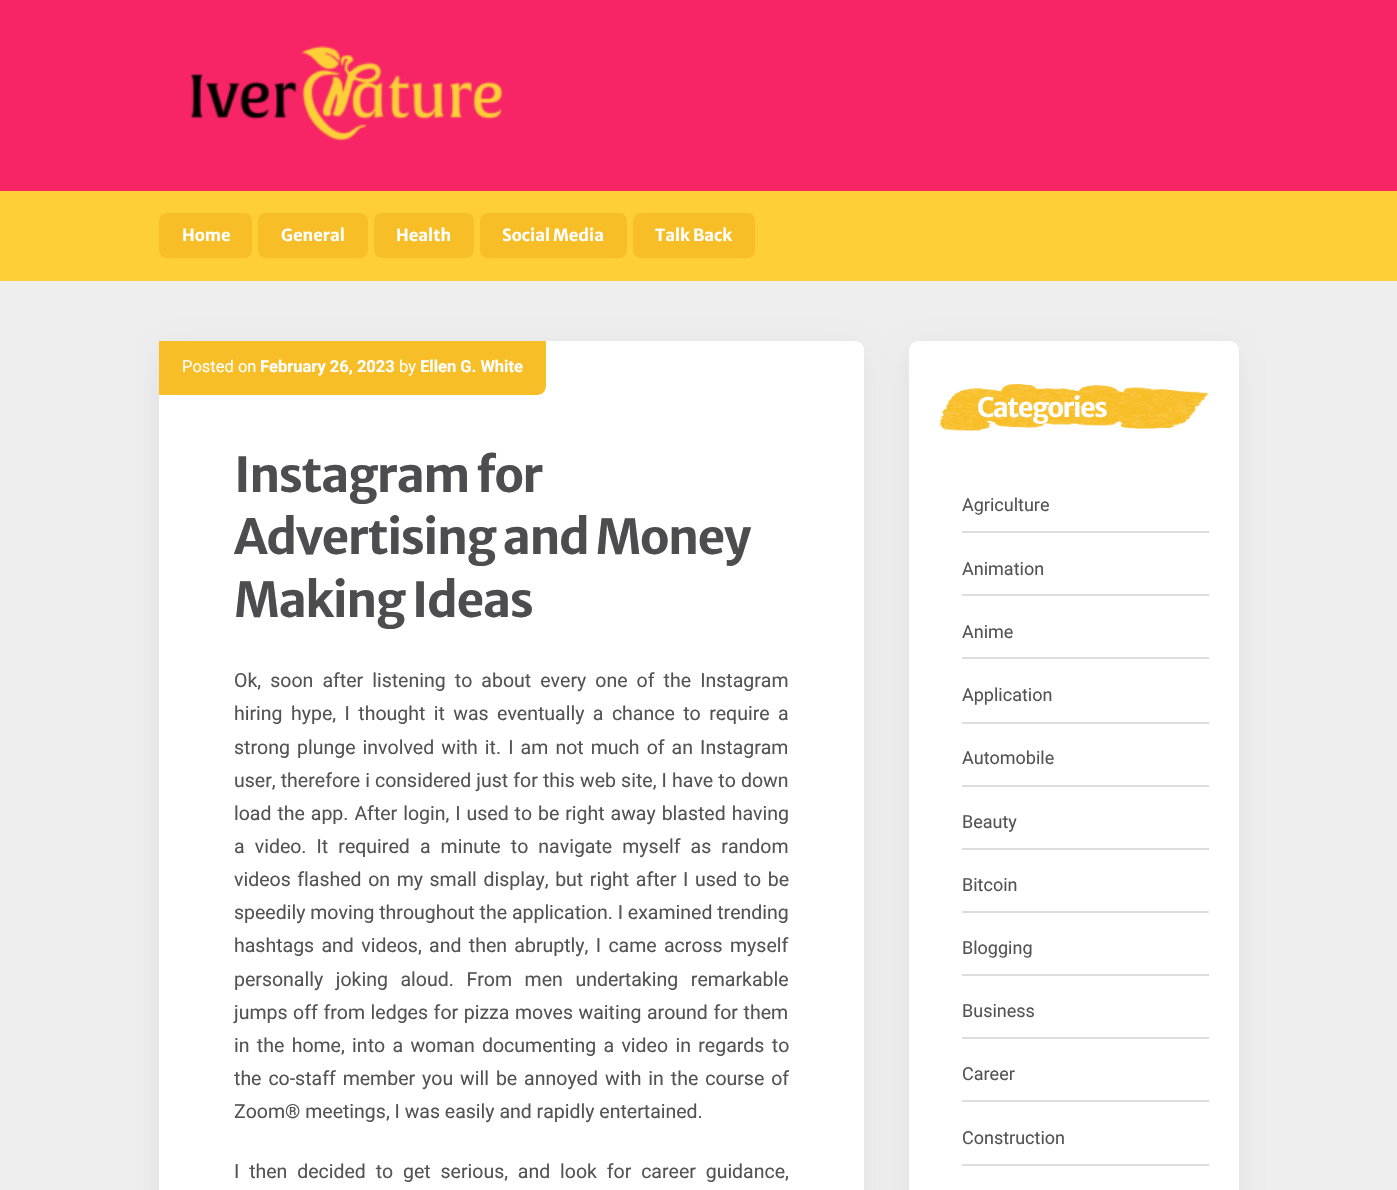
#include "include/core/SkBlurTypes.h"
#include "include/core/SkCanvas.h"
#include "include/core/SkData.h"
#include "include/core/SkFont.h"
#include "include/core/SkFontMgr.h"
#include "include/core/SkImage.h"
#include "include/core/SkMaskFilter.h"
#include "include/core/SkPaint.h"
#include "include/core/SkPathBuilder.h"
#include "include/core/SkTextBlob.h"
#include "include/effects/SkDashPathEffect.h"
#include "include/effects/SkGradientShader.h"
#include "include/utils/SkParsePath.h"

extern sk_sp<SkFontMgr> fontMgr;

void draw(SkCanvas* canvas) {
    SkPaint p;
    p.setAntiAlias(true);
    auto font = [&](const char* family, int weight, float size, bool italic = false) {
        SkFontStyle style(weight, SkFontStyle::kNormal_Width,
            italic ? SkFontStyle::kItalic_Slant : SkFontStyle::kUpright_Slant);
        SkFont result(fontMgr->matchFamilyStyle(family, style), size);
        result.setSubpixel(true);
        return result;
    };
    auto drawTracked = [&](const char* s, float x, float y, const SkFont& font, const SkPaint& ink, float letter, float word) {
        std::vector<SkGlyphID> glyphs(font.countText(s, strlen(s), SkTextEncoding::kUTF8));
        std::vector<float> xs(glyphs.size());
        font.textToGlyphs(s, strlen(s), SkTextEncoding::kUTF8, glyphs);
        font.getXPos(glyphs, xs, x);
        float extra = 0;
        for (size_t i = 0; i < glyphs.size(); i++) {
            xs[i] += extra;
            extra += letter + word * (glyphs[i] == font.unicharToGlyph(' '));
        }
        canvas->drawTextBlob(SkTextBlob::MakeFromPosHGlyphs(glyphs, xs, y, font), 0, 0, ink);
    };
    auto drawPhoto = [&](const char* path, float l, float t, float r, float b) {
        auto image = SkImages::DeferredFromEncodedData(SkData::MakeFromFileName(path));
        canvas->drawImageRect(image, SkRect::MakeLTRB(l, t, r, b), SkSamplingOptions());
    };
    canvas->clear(0xFFEEEEEE);
    p.setColor(0xFFF72565);
    canvas->drawRect(SkRect::MakeLTRB(0, 0, 1397, 191), p);
    drawPhoto("media/1.png", 190, 46, 503, 142);
    p.setColor(0xFFFFCF38);
    canvas->drawRect(SkRect::MakeLTRB(0, 191, 1397, 281), p);
    p.setColor(0xFFF8BE27);
    canvas->drawRoundRect(SkRect::MakeLTRB(159, 213, 252, 258), 8, 8, p);
    auto font1 = font("Merriweather Sans", 700, 16.5f);
    p.setColor(0xFFFFFFFF);
    canvas->drawString("Home", 182, 241, font1, p);
    p.setColor(0xFFF8BE27);
    canvas->drawRoundRect(SkRect::MakeLTRB(258, 213, 368, 258), 8, 8, p);
    p.setColor(0xFFFFFFFF);
    canvas->drawString("General", 281, 241, font1, p);
    p.setColor(0xFFF8BE27);
    canvas->drawRoundRect(SkRect::MakeLTRB(374, 213, 474, 258), 8, 8, p);
    p.setColor(0xFFFFFFFF);
    canvas->drawString("Health", 396, 241, font1, p);
    p.setColor(0xFFF8BE27);
    canvas->drawRoundRect(SkRect::MakeLTRB(480, 213, 627, 258), 8, 8, p);
    p.setColor(0xFFFFFFFF);
    canvas->drawString("Social Media", 502, 241, font1, p);
    p.setColor(0xFFF8BE27);
    canvas->drawRoundRect(SkRect::MakeLTRB(633, 213, 755, 258), 8, 8, p);
    p.setColor(0xFFFFFFFF);
    canvas->drawString("Talk Back", 655, 241, font1, p);
    p.setColor(0x1A000000);
    p.setMaskFilter(SkMaskFilter::MakeBlur(kNormal_SkBlurStyle, 15));
    canvas->drawRoundRect(SkRect::MakeLTRB(165, 354, 855, 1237), 1.5f, 1.5f, p);
    p.setMaskFilter(nullptr);
    p.setColor(0xFFFFFFFF);
    canvas->drawRoundRect(SkRect::MakeLTRB(159, 341, 864, 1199), 9, 9, p);
    p.setColor(0xFFF8BE27);
    canvas->drawPath(SkPathBuilder().moveTo(159, 341).lineTo(546, 341).lineTo(546, 386).cubicTo(546, 391, 542, 395, 537, 395).lineTo(159, 395).close().detach(), p);
    auto font2 = font("Roboto", 400, 16.5f);
    p.setColor(0xFFFFFFFF);
    canvas->drawString("Posted on", 182, 372, font2, p);
    auto font3 = font("Roboto", 700, 16.5f);
    canvas->drawString("February 26, 2023", 260, 372, font3, p);
    canvas->drawString("by", 399, 372, font2, p);
    canvas->drawString("Ellen G. White", 420, 372, font3, p);
    auto font4 = font("Merriweather Sans", 700, 48);
    p.setColor(0xFF4D4D4F);
    {
        const struct { const char* s; float x, y; } items[] = {
            {"Instagram for", 234, 492},
            {"Advertising and Money", 234, 554},
            {"Making Ideas", 234, 617},
        };
        for (auto [s, x, y] : items) {
            drawTracked(s, x, y, font4, p, -1.5f, 0);
        }
    }
    auto font5 = font("Roboto", 400, 19.5f);
    p.setColor(0xFF535353);
    drawTracked("Ok, soon after listening to about every one of the Instagram", 234, 687, font5, p, 0, 4.25f);
    drawTracked("hiring hype, I thought it was eventually a chance to require a", 234, 720, font5, p, 0, 3.6f);
    drawTracked("strong plunge involved with it. I am not much of an Instagram", 234, 754, font5, p, 0, 2.25f);
    drawTracked("user, therefore i considered just for this web site, I have to down", 234, 787, font5, p, 0, 0.3f);
    drawTracked("load the app. After login, I used to be right away blasted having", 234, 820, font5, p, 0, 1.1f);
    drawTracked("a video. It required a minute to navigate myself as random", 234, 853, font5, p, 0, 5.25f);
    drawTracked("videos flashed on my small display, but right after I used to be", 234, 886, font5, p, 0, 1.75f);
    canvas->drawString("speedily moving throughout the application. I examined trending", 234, 919, font5, p);
    drawTracked("hashtags and videos, and then abruptly, I came across myself", 234, 952, font5, p, 0, 2.5f);
    drawTracked("personally joking aloud. From men undertaking remarkable", 234, 986, font5, p, 0, 7.75f);
    drawTracked("jumps off from ledges for pizza moves waiting around for them", 234, 1019, font5, p, 0, 0.75f);
    drawTracked("in the home, into a woman documenting a video in regards to", 234, 1052, font5, p, 0, 2.5f);
    drawTracked("the co-staff member you will be annoyed with in the course of", 234, 1085, font5, p, 0, 2.1f);
    canvas->drawString("Zoom® meetings, I was easily and rapidly entertained.", 234, 1118, font5, p);
    drawTracked("I then decided to get serious, and look for career guidance,", 234, 1178, font5, p, 0, 5);
    p.setColor(0x1A000000);
    p.setMaskFilter(SkMaskFilter::MakeBlur(kNormal_SkBlurStyle, 15));
    canvas->drawRoundRect(SkRect::MakeLTRB(915, 354, 1230, 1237), 1.5f, 1.5f, p);
    p.setMaskFilter(nullptr);
    p.setColor(0xFFFFFFFF);
    canvas->drawRoundRect(SkRect::MakeLTRB(909, 341, 1239, 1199), 9, 9, p);
    drawPhoto("media/2.png", 939, 384, 1209, 431);
    auto font6 = font("Merriweather Sans", 700, 27);
    drawTracked("Categories", 977, 417, font6, p, -1.5f, 0);
    auto font7 = font("Roboto", 400, 18);
    p.setColor(0xFF535353);
    canvas->drawString("Agriculture", 962, 511, font7, p);
    p.setColor(0xFFDDDDDD);
    canvas->drawRect(SkRect::MakeLTRB(962, 531, 1209, 533), p);
    p.setColor(0xFF535353);
    canvas->drawString("Animation", 962, 575, font7, p);
    p.setColor(0xFFDDDDDD);
    canvas->drawRect(SkRect::MakeLTRB(962, 594, 1209, 596), p);
    p.setColor(0xFF535353);
    canvas->drawString("Anime", 962, 638, font7, p);
    p.setColor(0xFFDDDDDD);
    canvas->drawRect(SkRect::MakeLTRB(962, 657, 1209, 659), p);
    p.setColor(0xFF535353);
    canvas->drawString("Application", 962, 701, font7, p);
    p.setColor(0xFFDDDDDD);
    canvas->drawRect(SkRect::MakeLTRB(962, 722, 1209, 724), p);
    p.setColor(0xFF535353);
    canvas->drawString("Automobile", 962, 764, font7, p);
    p.setColor(0xFFDDDDDD);
    canvas->drawRect(SkRect::MakeLTRB(962, 785, 1209, 787), p);
    p.setColor(0xFF535353);
    canvas->drawString("Beauty", 962, 828, font7, p);
    p.setColor(0xFFDDDDDD);
    canvas->drawRect(SkRect::MakeLTRB(962, 848, 1209, 850), p);
    p.setColor(0xFF535353);
    canvas->drawString("Bitcoin", 962, 891, font7, p);
    p.setColor(0xFFDDDDDD);
    canvas->drawRect(SkRect::MakeLTRB(962, 911, 1209, 913), p);
    p.setColor(0xFF535353);
    canvas->drawString("Blogging", 962, 954, font7, p);
    p.setColor(0xFFDDDDDD);
    canvas->drawRect(SkRect::MakeLTRB(962, 974, 1209, 976), p);
    p.setColor(0xFF535353);
    canvas->drawString("Business", 962, 1017, font7, p);
    p.setColor(0xFFDDDDDD);
    canvas->drawRect(SkRect::MakeLTRB(962, 1037, 1209, 1039), p);
    p.setColor(0xFF535353);
    canvas->drawString("Career", 962, 1080, font7, p);
    p.setColor(0xFFDDDDDD);
    canvas->drawRect(SkRect::MakeLTRB(962, 1100, 1209, 1102), p);
    p.setColor(0xFF535353);
    canvas->drawString("Construction", 962, 1144, font7, p);
    p.setColor(0xFFDDDDDD);
    canvas->drawRect(SkRect::MakeLTRB(962, 1164, 1209, 1166), p);
}
